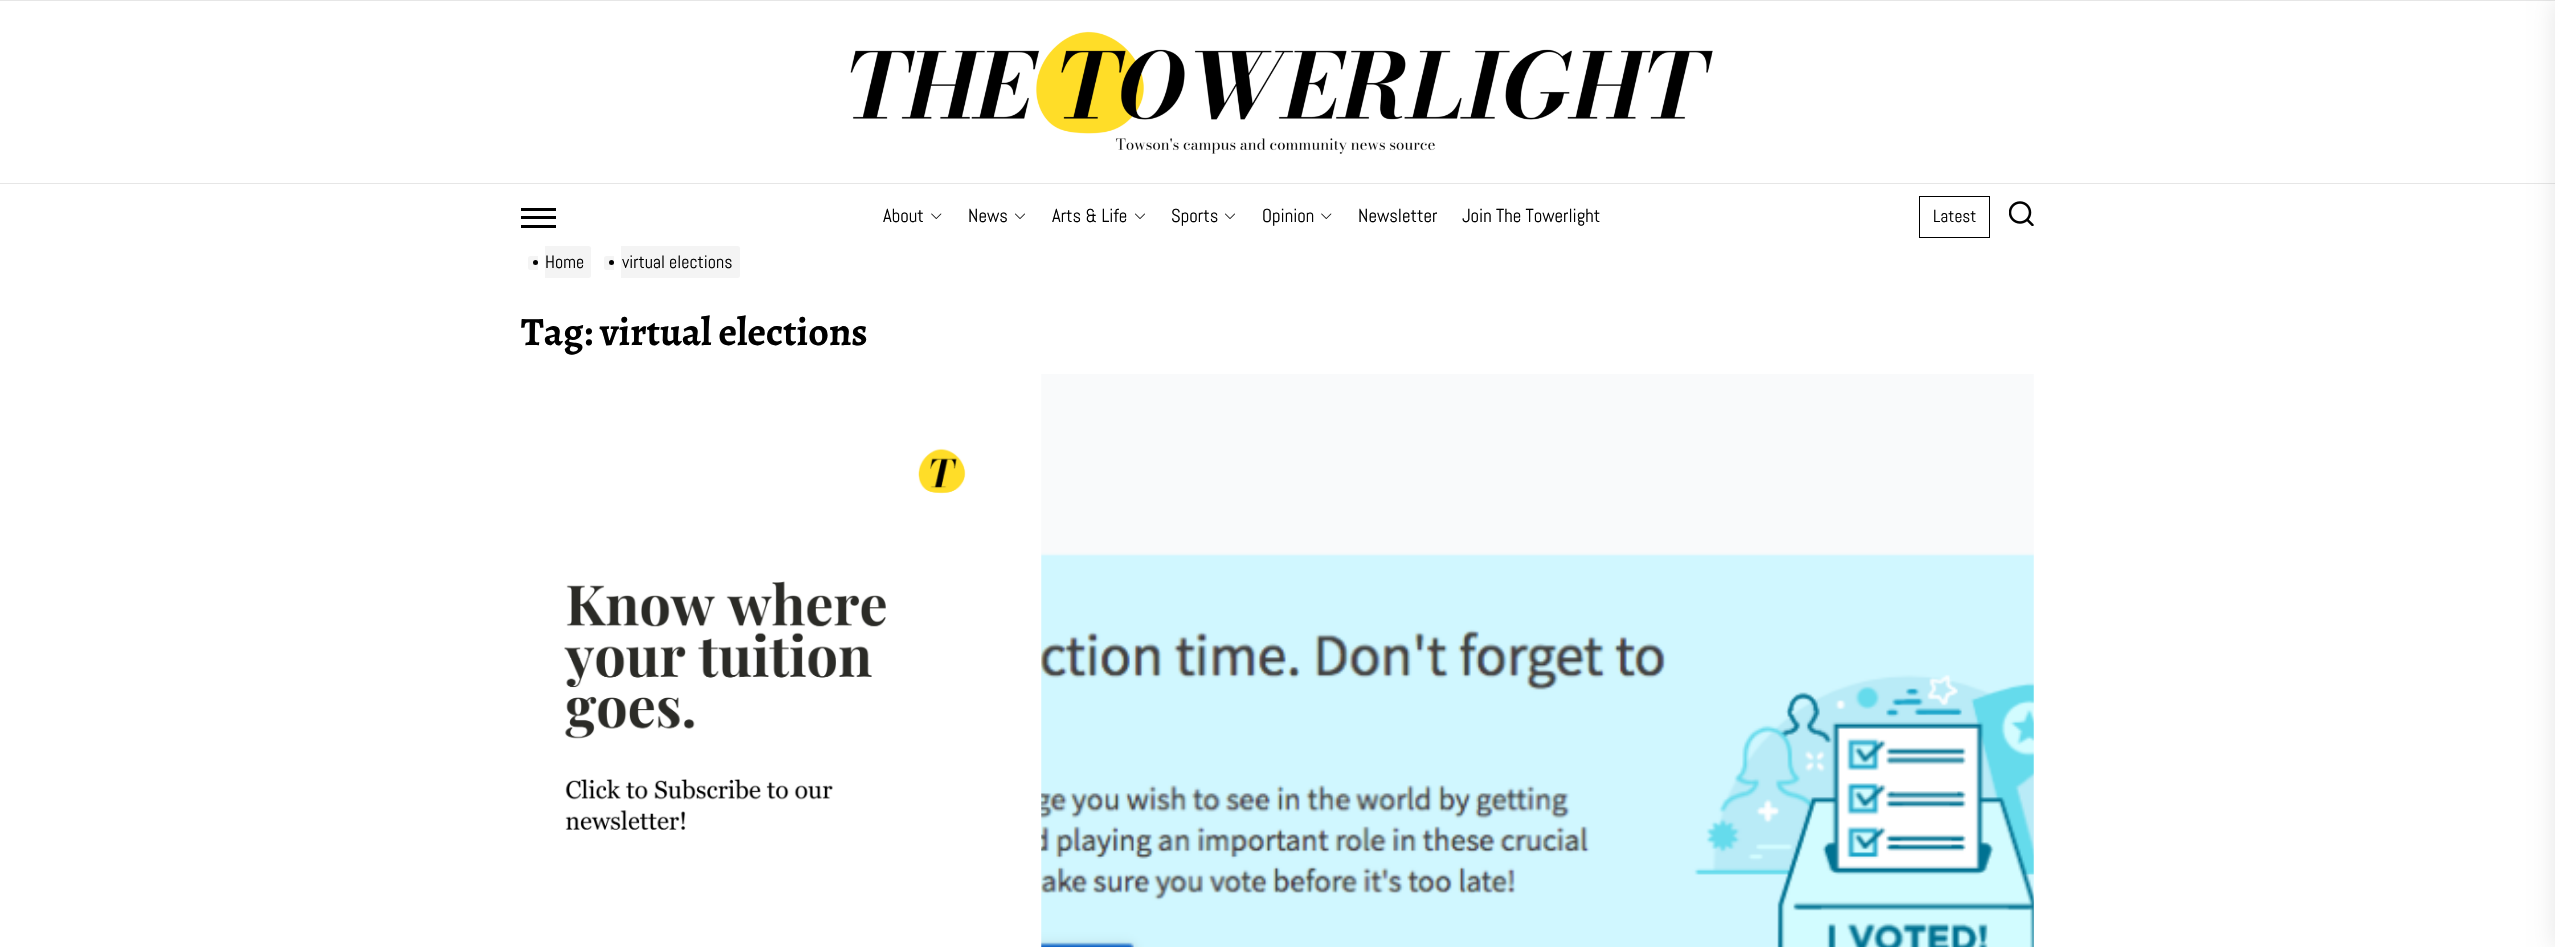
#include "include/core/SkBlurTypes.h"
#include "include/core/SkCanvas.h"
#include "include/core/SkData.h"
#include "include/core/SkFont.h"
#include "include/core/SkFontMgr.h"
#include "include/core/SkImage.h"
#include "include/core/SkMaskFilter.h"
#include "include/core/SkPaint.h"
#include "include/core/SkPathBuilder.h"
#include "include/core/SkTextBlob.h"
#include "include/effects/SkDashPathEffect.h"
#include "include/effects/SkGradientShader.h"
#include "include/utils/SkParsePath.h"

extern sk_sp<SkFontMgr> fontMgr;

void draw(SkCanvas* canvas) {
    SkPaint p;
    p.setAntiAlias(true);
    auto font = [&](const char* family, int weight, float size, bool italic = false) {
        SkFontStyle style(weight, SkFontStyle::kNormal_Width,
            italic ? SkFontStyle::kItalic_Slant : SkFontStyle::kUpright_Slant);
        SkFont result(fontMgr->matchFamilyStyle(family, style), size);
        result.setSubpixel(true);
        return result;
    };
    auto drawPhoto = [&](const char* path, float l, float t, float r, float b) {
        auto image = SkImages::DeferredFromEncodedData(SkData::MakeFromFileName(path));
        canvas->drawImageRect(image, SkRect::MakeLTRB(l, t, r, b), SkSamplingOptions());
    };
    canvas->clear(0xFFFFFFFF);
    p.setColor(0xFFE6E6E6);
    canvas->drawRect(SkRect::MakeLTRB(0, 0, 2555, 1), p);
    canvas->drawRect(SkRect::MakeLTRB(0, 183, 2555, 184), p);
    drawPhoto("media/1.png", 850, 31, 1713, 154);
    {
        const struct { float l, t, r, b; SkColor color; } items[] = {
            {521, 216, 556, 219, 0xFF000000},
            {521, 208, 556, 211, 0xFF000000},
            {521, 225, 556, 228, 0xFF000000},
        };
        for (auto [l, t, r, b, color] : items) {
            p.setColor(color);
            canvas->drawRect(SkRect::MakeLTRB(l, t, r, b), p);
        }
    }
    auto font1 = font("Abel", 400, 18.75f);
    canvas->drawString("About", 883, 222, font1, p);
    drawPhoto("media/2.png", 931, 213, 942, 219);
    canvas->drawString("News", 968, 222, font1, p);
    drawPhoto("media/3.png", 1015, 213, 1025, 219);
    canvas->drawString("Arts & Life", 1052, 222, font1, p);
    drawPhoto("media/3.png", 1135, 213, 1145, 219);
    canvas->drawString("Sports", 1171, 222, font1, p);
    drawPhoto("media/3.png", 1225, 213, 1235, 219);
    canvas->drawString("Opinion", 1262, 222, font1, p);
    drawPhoto("media/2.png", 1321, 213, 1332, 219);
    canvas->drawString("Newsletter", 1358, 222, font1, p);
    canvas->drawString("Join The Towerlight", 1462, 222, font1, p);
    p.setStyle(SkPaint::kStroke_Style);
    p.setStrokeWidth(1);
    canvas->drawRect(SkRect::MakeLTRB(1919.5f, 196.5f, 1989.5f, 237.5f), p);
    auto font2 = font("Abel", 400, 17.5f);
    p.setStyle(SkPaint::kFill_Style);
    canvas->drawString("Latest", 1933, 222, font2, p);
    drawPhoto("media/4.png", 2009, 201, 2034, 226);
    p.setColor(0x1A000000);
    p.setMaskFilter(SkMaskFilter::MakeBlur(kNormal_SkBlurStyle, 12.5f));
    canvas->drawRect(SkRect::MakeLTRB(2555, 0, 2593, 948), p);
    p.setMaskFilter(nullptr);
    p.setColor(0xFFF4F4F4);
    canvas->drawPath(SkPathBuilder().moveTo(530.5f, 256).lineTo(538, 256).lineTo(538, 270).lineTo(530.5f, 270).cubicTo(529, 270, 528, 269, 528, 267.5f).lineTo(528, 258.5f).cubicTo(528, 257, 529, 256, 530.5f, 256).close().detach(), p);
    canvas->drawPath(SkPathBuilder().moveTo(545, 246).lineTo(588.5f, 246).cubicTo(590, 246, 591, 247, 591, 248.5f).lineTo(591, 275.5f).cubicTo(591, 277, 590, 278, 588.5f, 278).lineTo(545, 278).close().detach(), p);
    p.setColor(0xFF000000);
    canvas->drawCircle(535.5f, 262.5f, 2.5f, p);
    auto font3 = font("Abel", 400, 18);
    canvas->drawString("Home", 545, 268, font3, p);
    p.setColor(0xFFF4F4F4);
    canvas->drawPath(SkPathBuilder().moveTo(606.5f, 256).lineTo(614, 256).lineTo(614, 270).lineTo(606.5f, 270).cubicTo(605, 270, 604, 269, 604, 267.5f).lineTo(604, 258.5f).cubicTo(604, 257, 605, 256, 606.5f, 256).close().detach(), p);
    canvas->drawPath(SkPathBuilder().moveTo(621, 246).lineTo(737.5f, 246).cubicTo(739, 246, 740, 247, 740, 248.5f).lineTo(740, 275.5f).cubicTo(740, 277, 739, 278, 737.5f, 278).lineTo(621, 278).close().detach(), p);
    p.setColor(0xFF000000);
    canvas->drawCircle(611.5f, 262.5f, 2.5f, p);
    canvas->drawString("virtual elections", 622, 268, font3, p);
    auto font4 = font("Alegreya", 700, 40);
    canvas->drawString("Tag: virtual elections", 521, 345, font4, p);
    drawPhoto("media/5.png", 564, 448, 966, 830);
    drawPhoto("media/6.png", 1041, 374, 2034, 947);
}
